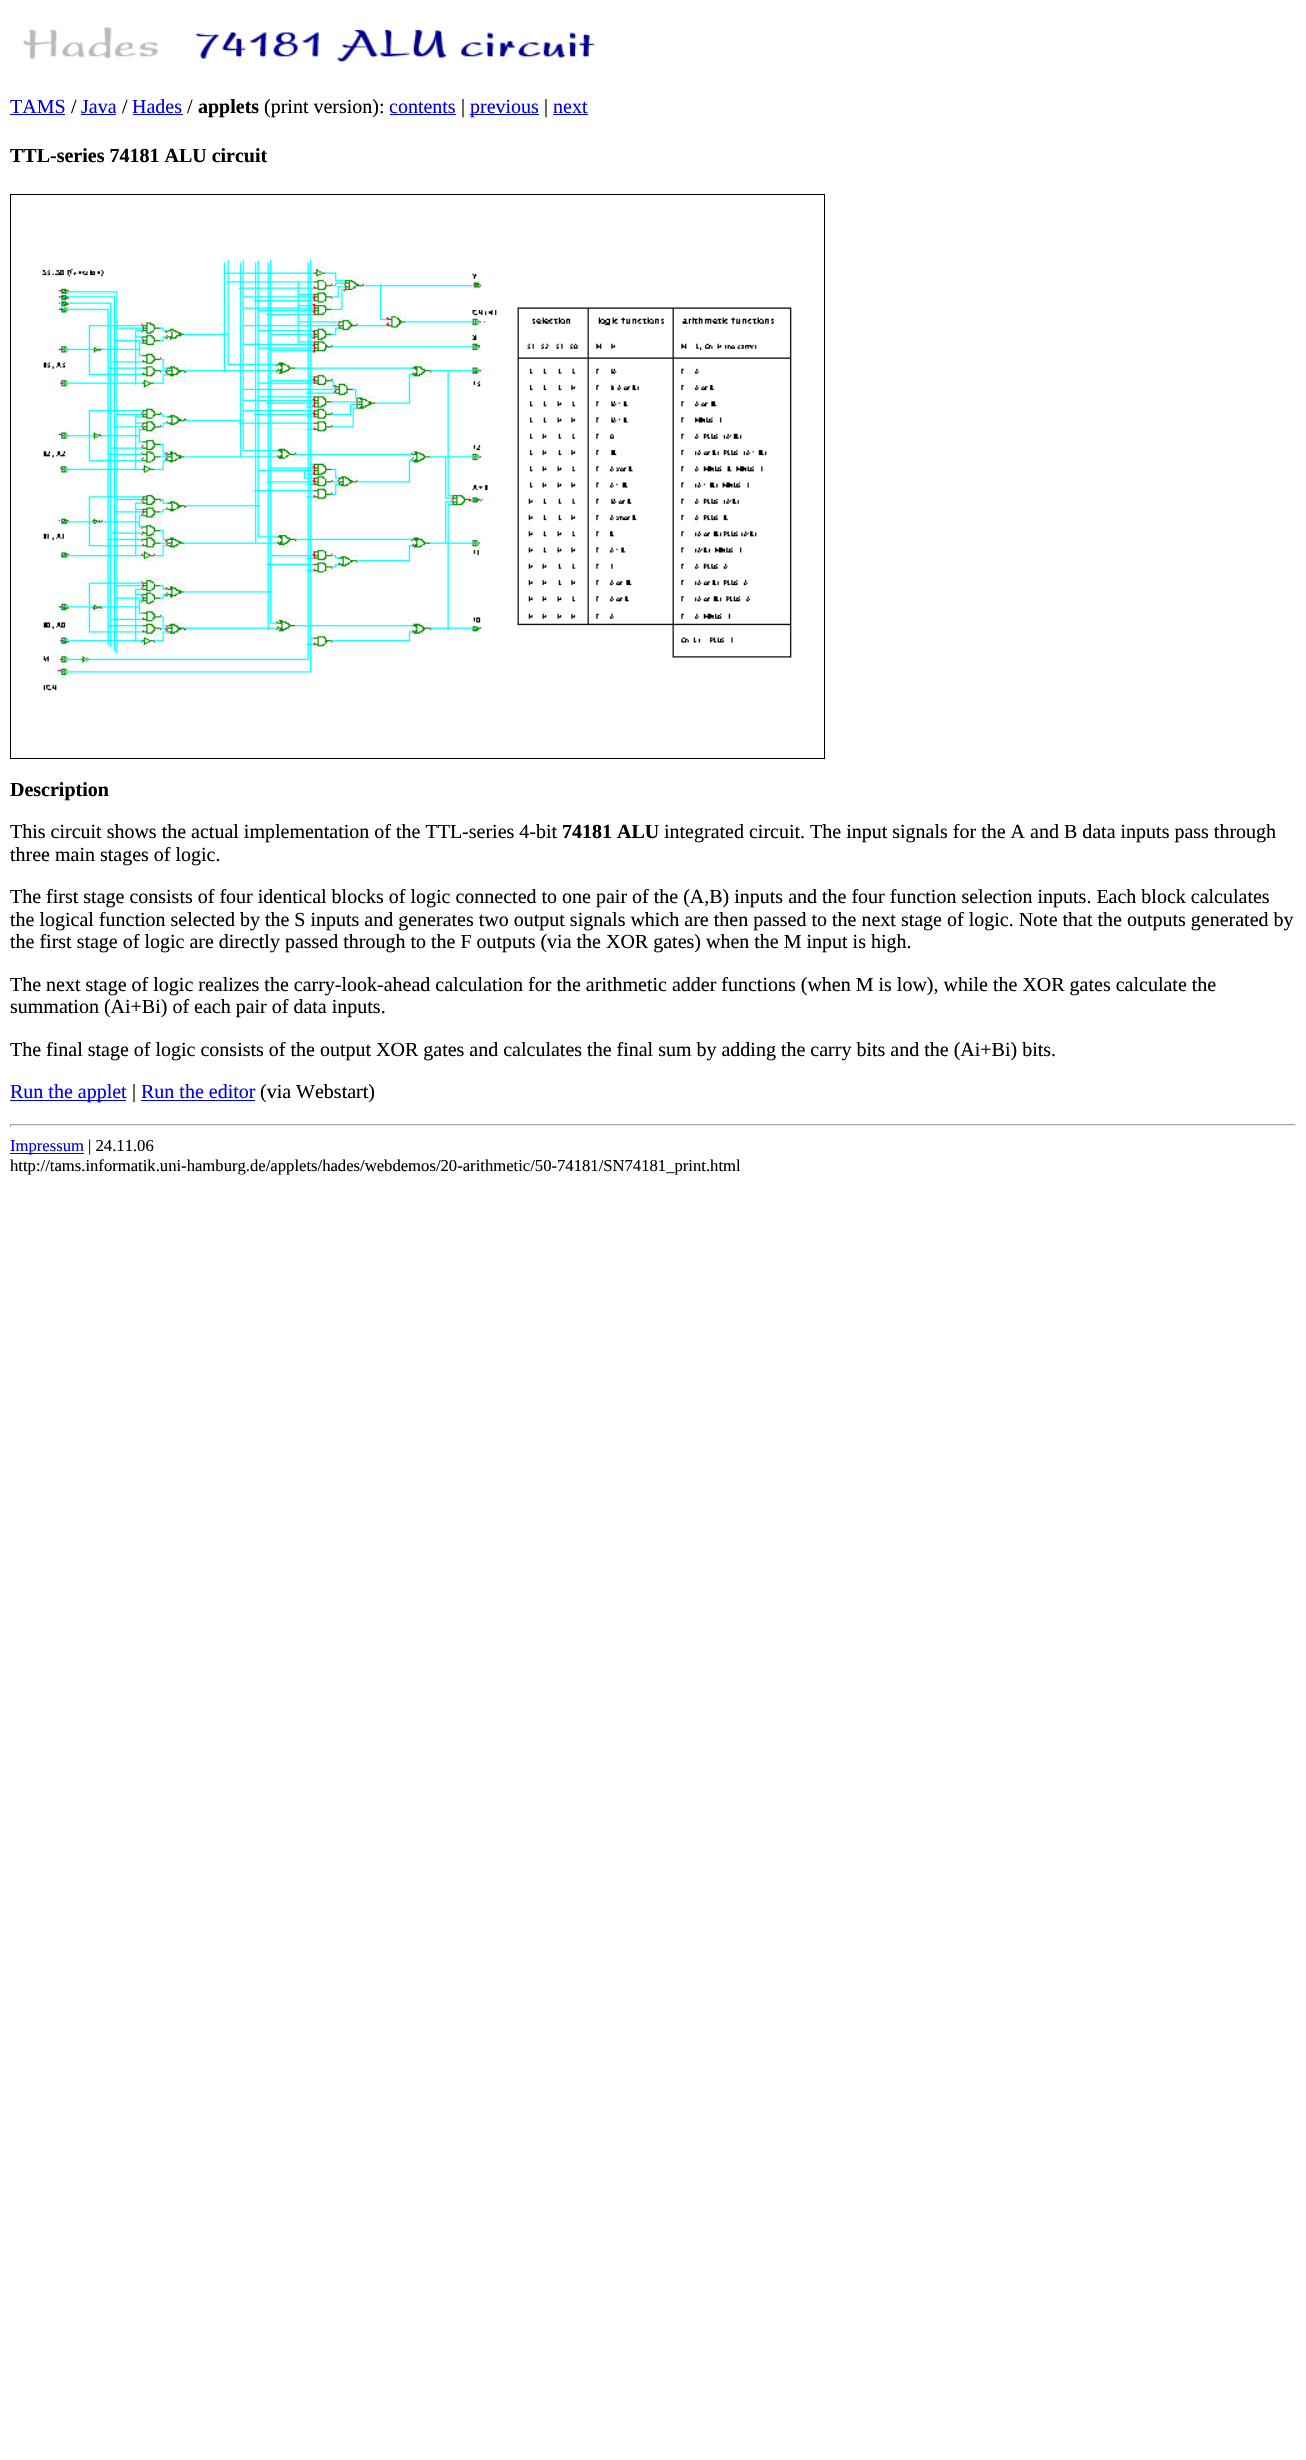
#include "include/core/SkBlurTypes.h"
#include "include/core/SkCanvas.h"
#include "include/core/SkData.h"
#include "include/core/SkFont.h"
#include "include/core/SkFontMgr.h"
#include "include/core/SkImage.h"
#include "include/core/SkMaskFilter.h"
#include "include/core/SkPaint.h"
#include "include/core/SkPathBuilder.h"
#include "include/core/SkTextBlob.h"
#include "include/effects/SkDashPathEffect.h"
#include "include/effects/SkGradientShader.h"
#include "include/utils/SkParsePath.h"

extern sk_sp<SkFontMgr> fontMgr;

void draw(SkCanvas* canvas) {
    SkPaint p;
    p.setAntiAlias(true);
    auto font = [&](const char* family, int weight, float size, bool italic = false) {
        SkFontStyle style(weight, SkFontStyle::kNormal_Width,
            italic ? SkFontStyle::kItalic_Slant : SkFontStyle::kUpright_Slant);
        SkFont result(fontMgr->matchFamilyStyle(family, style), size);
        result.setSubpixel(true);
        return result;
    };
    auto drawPhoto = [&](const char* path, float l, float t, float r, float b) {
        auto image = SkImages::DeferredFromEncodedData(SkData::MakeFromFileName(path));
        canvas->drawImageRect(image, SkRect::MakeLTRB(l, t, r, b), SkSamplingOptions());
    };
    canvas->clear(0xFFFFFFFF);
    drawPhoto("media/1.png", 23, 27, 158, 59);
    drawPhoto("media/2.png", 196, 29, 596, 62);
    auto font1 = font("Liberation Serif", 400, 20);
    p.setColor(0xFF0000EE);
    canvas->drawString("TAMS", 10, 113, font1, p);
    canvas->drawRect(SkRect::MakeLTRB(10, 114, 65, 115), p);
    p.setColor(0xFF000000);
    canvas->drawString("/", 71, 113, font1, p);
    p.setColor(0xFF0000EE);
    canvas->drawString("Java", 81, 113, font1, p);
    canvas->drawRect(SkRect::MakeLTRB(81, 114, 116, 115), p);
    p.setColor(0xFF000000);
    canvas->drawString("/", 122, 113, font1, p);
    p.setColor(0xFF0000EE);
    canvas->drawString("Hades", 132, 113, font1, p);
    canvas->drawRect(SkRect::MakeLTRB(133, 114, 183, 115), p);
    p.setColor(0xFF000000);
    canvas->drawString("/", 187, 113, font1, p);
    auto font2 = font("Liberation Serif", 700, 20);
    canvas->drawString("applets", 198, 113, font2, p);
    canvas->drawString("(print version):", 264, 113, font1, p);
    p.setColor(0xFF0000EE);
    canvas->drawString("contents", 389, 113, font1, p);
    canvas->drawRect(SkRect::MakeLTRB(390, 114, 456, 115), p);
    p.setColor(0xFF000000);
    canvas->drawString("|", 461, 113, font1, p);
    p.setColor(0xFF0000EE);
    canvas->drawRect(SkRect::MakeLTRB(470, 114, 539, 115), p);
    canvas->drawString("previous", 470, 113, font1, p);
    p.setColor(0xFF000000);
    canvas->drawString("|", 544, 113, font1, p);
    p.setColor(0xFF0000EE);
    canvas->drawString("next", 553, 113, font1, p);
    canvas->drawRect(SkRect::MakeLTRB(553, 114, 588, 115), p);
    p.setColor(0xFF000000);
    canvas->drawString("TTL-series 74181 ALU circuit", 10, 162, font2, p);
    p.setStyle(SkPaint::kStroke_Style);
    p.setStrokeWidth(1);
    canvas->drawRect(SkRect::MakeLTRB(10.5f, 194.5f, 824.5f, 758.5f), p);
    drawPhoto("media/3.png", 42, 259, 792, 691);
    p.setStyle(SkPaint::kFill_Style);
    canvas->drawString("Description", 10, 796, font2, p);
    canvas->drawString("This circuit shows the actual implementation of the TTL-series 4-bit", 10, 838, font1, p);
    canvas->drawString("74181 ALU", 562, 838, font2, p);
    {
        const struct { const char* s; float x, y; } items[] = {
            {"integrated circuit. The input signals for the A and B data inputs pass through", 664, 838},
            {"three main stages of logic.", 10, 861},
            {"The first stage consists of four identical blocks of logic connected to one pair of the (A,B) inputs and the four function selection inputs. Each block calculates", 10, 903},
            {"the logical function selected by the S inputs and generates two output signals which are then passed to the next stage of logic. Note that the outputs generated by", 10, 926},
            {"the first stage of logic are directly passed through to the F outputs (via the XOR gates) when the M input is high.", 10, 948},
            {"The next stage of logic realizes the carry-look-ahead calculation for the arithmetic adder functions (when M is low), while the XOR gates calculate the", 10, 991},
            {"summation (Ai+Bi) of each pair of data inputs.", 10, 1013},
            {"The final stage of logic consists of the output XOR gates and calculates the final sum by adding the carry bits and the (Ai+Bi) bits.", 10, 1056},
        };
        for (auto [s, x, y] : items) {
            canvas->drawString(s, x, y, font1, p);
        }
    }
    p.setColor(0xFF0000EE);
    canvas->drawRect(SkRect::MakeLTRB(10, 1100, 126, 1101), p);
    canvas->drawString("Run the applet", 10, 1098, font1, p);
    p.setColor(0xFF000000);
    canvas->drawString("|", 132, 1098, font1, p);
    p.setColor(0xFF0000EE);
    canvas->drawString("Run the editor", 141, 1098, font1, p);
    canvas->drawRect(SkRect::MakeLTRB(141, 1100, 255, 1101), p);
    p.setColor(0xFF000000);
    canvas->drawString("(via Webstart)", 260, 1098, font1, p);
    {
        const struct { float l, t, r, b; SkColor color; } items[] = {
            {10, 1124, 1296, 1125, 0xFF9F9F9F},
            {1295, 1124, 1296, 1127, 0xFFEEEEEE},
            {10, 1125, 1296, 1126, 0xFFEEEEEE},
            {10, 1124, 11, 1127, 0xFF9F9F9F},
            {10, 1153, 84, 1154, 0xFF0000EE},
        };
        for (auto [l, t, r, b, color] : items) {
            p.setColor(color);
            canvas->drawRect(SkRect::MakeLTRB(l, t, r, b), p);
        }
    }
    auto font3 = font("Liberation Serif", 400, 16.65f);
    canvas->drawString("Impressum", 10, 1151, font3, p);
    p.setColor(0xFF000000);
    canvas->drawString("| 24.11.06", 88, 1151, font3, p);
    canvas->drawString("http://tams.informatik.uni-hamburg.de/applets/hades/webdemos/20-arithmetic/50-74181/SN74181_print.html", 10, 1171, font3, p);
}
